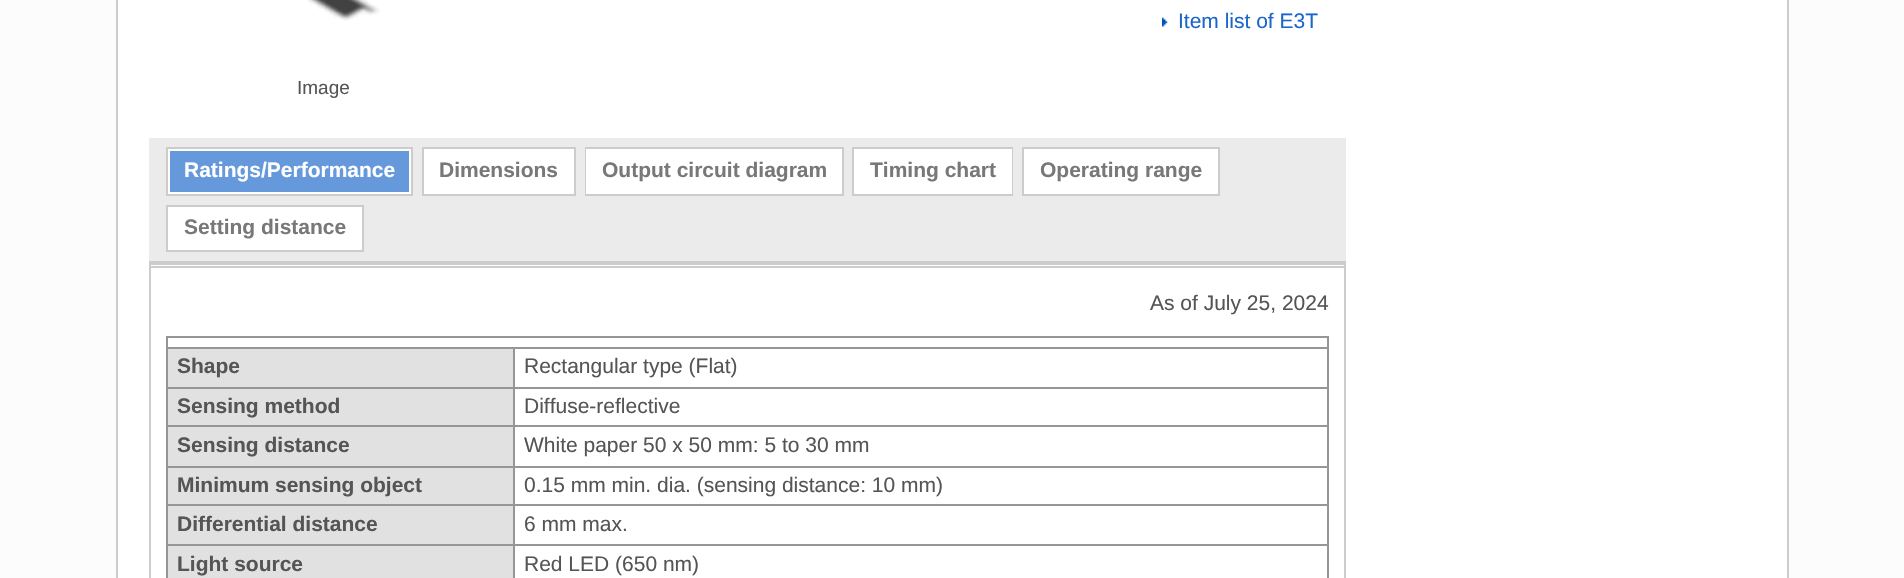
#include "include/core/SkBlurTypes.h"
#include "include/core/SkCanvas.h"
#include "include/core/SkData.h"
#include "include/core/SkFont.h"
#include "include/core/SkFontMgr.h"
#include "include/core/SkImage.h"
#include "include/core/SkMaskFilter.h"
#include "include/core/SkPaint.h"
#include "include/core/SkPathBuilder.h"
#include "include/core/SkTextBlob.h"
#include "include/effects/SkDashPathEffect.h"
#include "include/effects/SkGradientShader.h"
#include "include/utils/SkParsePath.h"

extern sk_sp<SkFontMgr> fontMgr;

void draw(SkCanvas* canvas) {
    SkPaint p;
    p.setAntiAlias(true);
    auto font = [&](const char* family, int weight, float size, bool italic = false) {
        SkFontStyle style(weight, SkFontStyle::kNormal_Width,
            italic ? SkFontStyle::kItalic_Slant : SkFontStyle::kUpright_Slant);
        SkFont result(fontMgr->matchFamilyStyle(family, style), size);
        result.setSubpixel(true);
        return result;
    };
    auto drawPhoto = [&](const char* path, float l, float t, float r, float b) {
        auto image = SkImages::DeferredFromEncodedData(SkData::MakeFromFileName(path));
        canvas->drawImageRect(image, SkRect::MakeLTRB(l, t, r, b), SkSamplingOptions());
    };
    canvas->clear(0xFFFCFCFC);
    {
        const struct { float l, t, r, b; SkColor color; } items[] = {
            {118, 0, 1787, 578, 0xFFFFFFFF},
            {1787, 0, 1789, 578, 0xFFCCCCCC},
            {116, 0, 118, 578, 0xFFCCCCCC},
        };
        for (auto [l, t, r, b, color] : items) {
            p.setColor(color);
            canvas->drawRect(SkRect::MakeLTRB(l, t, r, b), p);
        }
    }
    drawPhoto("media/1.png", 1162, 17, 1168, 27);
    auto font1 = font("Liberation Sans", 400, 21);
    p.setColor(0xFF1A66CA);
    canvas->drawString("Item list of E3T", 1178, 28, font1, p);
    drawPhoto("media/2.png", 307, 0, 380, 21);
    auto font2 = font("Liberation Sans", 400, 19);
    p.setColor(0xFF555555);
    canvas->drawString("Image", 297, 94, font2, p);
    p.setColor(0xFFCCCCCC);
    canvas->drawRect(SkRect::MakeLTRB(149, 261, 1346, 578), p);
    p.setColor(0xFFEBEBEB);
    canvas->drawRect(SkRect::MakeLTRB(149, 138, 1346, 261), p);
    p.setStyle(SkPaint::kStroke_Style);
    p.setStrokeWidth(2);
    p.setColor(0xFFCCCCCC);
    canvas->drawRect(SkRect::MakeLTRB(167, 148, 412, 195), p);
    p.setStyle(SkPaint::kFill_Style);
    p.setColor(0xFF6699DB);
    canvas->drawRect(SkRect::MakeLTRB(169, 150, 410, 193), p);
    p.setStyle(SkPaint::kStroke_Style);
    p.setColor(0xFFFFFFFF);
    canvas->drawRect(SkRect::MakeLTRB(169, 150, 410, 193), p);
    auto font3 = font("Liberation Sans", 700, 21);
    p.setStyle(SkPaint::kFill_Style);
    canvas->drawString("Ratings/Performance", 184, 177, font3, p);
    p.setStyle(SkPaint::kStroke_Style);
    p.setColor(0xFFCCCCCC);
    canvas->drawRect(SkRect::MakeLTRB(423, 148, 575, 195), p);
    p.setStyle(SkPaint::kFill_Style);
    p.setColor(0xFFFFFFFF);
    canvas->drawRect(SkRect::MakeLTRB(424, 149, 574, 194), p);
    p.setColor(0xFF787878);
    canvas->drawString("Dimensions", 439, 177, font3, p);
    p.setStyle(SkPaint::kStroke_Style);
    p.setColor(0xFFCCCCCC);
    canvas->drawRect(SkRect::MakeLTRB(586, 148, 843, 195), p);
    p.setStyle(SkPaint::kFill_Style);
    p.setColor(0xFFFFFFFF);
    canvas->drawRect(SkRect::MakeLTRB(586, 149, 842, 194), p);
    p.setColor(0xFF787878);
    canvas->drawString("Output circuit diagram", 602, 177, font3, p);
    p.setStyle(SkPaint::kStroke_Style);
    p.setColor(0xFFCCCCCC);
    canvas->drawRect(SkRect::MakeLTRB(853, 148, 1012, 195), p);
    p.setStyle(SkPaint::kFill_Style);
    p.setColor(0xFFFFFFFF);
    canvas->drawRect(SkRect::MakeLTRB(854, 149, 1012, 194), p);
    p.setColor(0xFF787878);
    canvas->drawString("Timing chart", 870, 177, font3, p);
    p.setStyle(SkPaint::kStroke_Style);
    p.setColor(0xFFCCCCCC);
    canvas->drawRect(SkRect::MakeLTRB(1023, 148, 1219, 195), p);
    p.setStyle(SkPaint::kFill_Style);
    p.setColor(0xFFFFFFFF);
    canvas->drawRect(SkRect::MakeLTRB(1024, 149, 1218, 194), p);
    p.setColor(0xFF787878);
    canvas->drawString("Operating range", 1040, 177, font3, p);
    p.setStyle(SkPaint::kStroke_Style);
    p.setColor(0xFFCCCCCC);
    canvas->drawRect(SkRect::MakeLTRB(167, 206, 363, 251), p);
    p.setStyle(SkPaint::kFill_Style);
    p.setColor(0xFFFFFFFF);
    canvas->drawRect(SkRect::MakeLTRB(168, 207, 362, 250), p);
    p.setColor(0xFF787878);
    canvas->drawString("Setting distance", 184, 234, font3, p);
    p.setColor(0xFFFFFFFF);
    canvas->drawRect(SkRect::MakeLTRB(151, 265, 1344, 578), p);
    p.setColor(0xFFCCCCCC);
    canvas->drawRect(SkRect::MakeLTRB(151, 266, 1344, 268), p);
    p.setColor(0xFF555555);
    canvas->drawString("As of July 25, 2024", 1150, 310, font1, p);
    {
        const struct { float l, t, r, b; SkColor color; } items[] = {
            {166, 336, 1328, 338, 0xFF969696},
            {1327, 336, 1329, 578, 0xFF969696},
            {166, 336, 168, 578, 0xFF969696},
            {168, 349, 513, 387, 0xFFE1E1E1},
            {513, 347, 1328, 349, 0xFF969696},
            {513, 387, 1328, 389, 0xFF969696},
            {513, 425, 1328, 427, 0xFF969696},
            {513, 466, 1328, 468, 0xFF969696},
            {513, 504, 1328, 506, 0xFF969696},
            {513, 544, 1328, 546, 0xFF969696},
            {513, 544, 515, 578, 0xFF969696},
            {166, 544, 515, 546, 0xFF969696},
            {513, 504, 515, 546, 0xFF969696},
            {166, 504, 515, 506, 0xFF969696},
            {513, 466, 515, 506, 0xFF969696},
            {166, 466, 515, 468, 0xFF969696},
            {513, 425, 515, 467, 0xFF969696},
            {166, 425, 515, 427, 0xFF969696},
            {513, 387, 515, 427, 0xFF969696},
            {166, 387, 515, 389, 0xFF969696},
            {513, 347, 515, 389, 0xFF969696},
            {166, 347, 515, 349, 0xFF969696},
        };
        for (auto [l, t, r, b, color] : items) {
            p.setColor(color);
            canvas->drawRect(SkRect::MakeLTRB(l, t, r, b), p);
        }
    }
    p.setColor(0xFF555555);
    canvas->drawString("Shape", 177, 373, font3, p);
    canvas->drawString("Rectangular type (Flat)", 524, 373, font1, p);
    p.setColor(0xFFE1E1E1);
    canvas->drawRect(SkRect::MakeLTRB(168, 389, 513, 425), p);
    p.setColor(0xFF555555);
    canvas->drawString("Sensing method", 177, 413, font3, p);
    canvas->drawString("Diffuse-reflective", 524, 413, font1, p);
    p.setColor(0xFFE1E1E1);
    canvas->drawRect(SkRect::MakeLTRB(168, 427, 513, 466), p);
    p.setColor(0xFF555555);
    canvas->drawString("Sensing distance", 177, 452, font3, p);
    canvas->drawString("White paper 50 x 50 mm: 5 to 30 mm", 524, 452, font1, p);
    p.setColor(0xFFE1E1E1);
    canvas->drawRect(SkRect::MakeLTRB(168, 468, 513, 504), p);
    p.setColor(0xFF555555);
    canvas->drawString("Minimum sensing object", 177, 492, font3, p);
    canvas->drawString("0.15 mm min. dia. (sensing distance: 10 mm)", 524, 492, font1, p);
    p.setColor(0xFFE1E1E1);
    canvas->drawRect(SkRect::MakeLTRB(168, 506, 513, 544), p);
    p.setColor(0xFF555555);
    canvas->drawString("Differential distance", 177, 531, font3, p);
    canvas->drawString("6 mm max.", 524, 531, font1, p);
    p.setColor(0xFFE1E1E1);
    canvas->drawRect(SkRect::MakeLTRB(168, 546, 513, 578), p);
    p.setColor(0xFF555555);
    canvas->drawString("Light source", 177, 571, font3, p);
    canvas->drawString("Red LED (650 nm)", 524, 571, font1, p);
}
